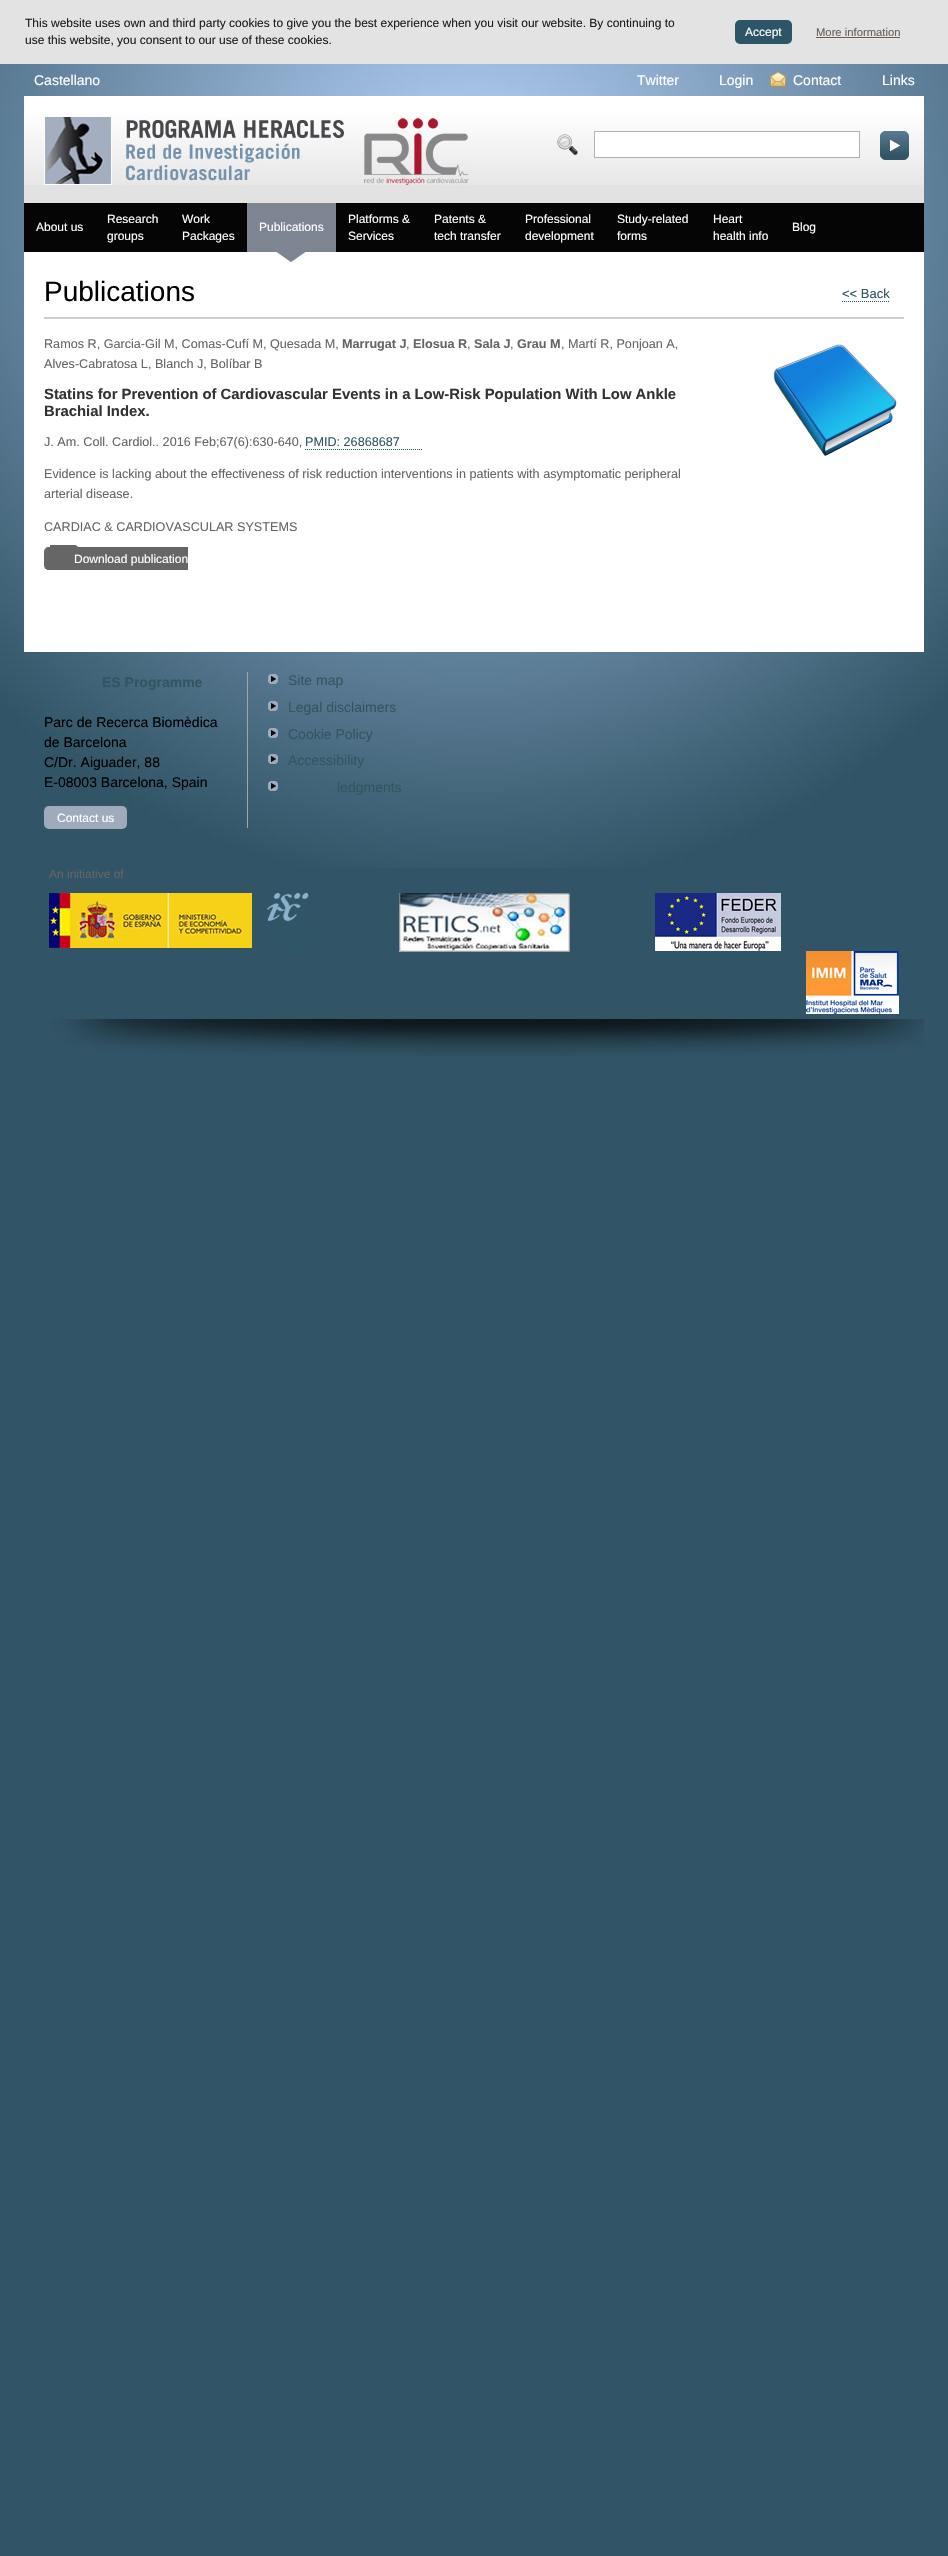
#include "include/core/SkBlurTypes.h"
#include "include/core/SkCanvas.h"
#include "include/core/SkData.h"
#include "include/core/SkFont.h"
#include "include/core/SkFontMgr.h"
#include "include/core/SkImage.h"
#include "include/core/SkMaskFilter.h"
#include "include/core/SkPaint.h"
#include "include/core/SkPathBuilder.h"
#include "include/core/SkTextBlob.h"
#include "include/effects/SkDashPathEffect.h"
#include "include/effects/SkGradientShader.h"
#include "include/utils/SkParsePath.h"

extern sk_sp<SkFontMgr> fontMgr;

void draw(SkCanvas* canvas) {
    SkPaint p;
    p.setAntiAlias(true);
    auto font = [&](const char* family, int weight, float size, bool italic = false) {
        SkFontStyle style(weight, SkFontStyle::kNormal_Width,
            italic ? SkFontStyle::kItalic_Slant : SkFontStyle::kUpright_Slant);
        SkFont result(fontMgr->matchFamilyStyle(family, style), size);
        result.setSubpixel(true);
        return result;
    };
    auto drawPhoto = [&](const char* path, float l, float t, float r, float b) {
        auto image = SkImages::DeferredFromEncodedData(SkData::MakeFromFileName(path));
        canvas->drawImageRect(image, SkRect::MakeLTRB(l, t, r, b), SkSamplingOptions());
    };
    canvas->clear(0xFF315467);
    drawPhoto("media/1.png", 0, 64, 948, 868);
    p.setColor(0xFFE3E3E3);
    canvas->drawRect(SkRect::MakeLTRB(0, 0, 948, 64), p);
    auto font1 = font("Liberation Sans", 400, 12);
    p.setColor(0xFF1C1C1C);
    canvas->drawString("This website uses own and third party cookies to give you the best experience when you visit our website. By continuing to", 25, 27, font1, p);
    canvas->drawString("use this website, you consent to our use of these cookies.", 25, 44, font1, p);
    p.setColor(0xFF2C5567);
    canvas->drawRoundRect(SkRect::MakeLTRB(735, 20, 792, 44), 5, 5, p);
    p.setColor(0xFFFFFFFF);
    canvas->drawString("Accept", 745, 36, font1, p);
    auto font2 = font("Liberation Sans", 400, 11.25f);
    p.setColor(0xFF675E59);
    canvas->drawString("More information", 816, 36, font2, p);
    canvas->drawRect(SkRect::MakeLTRB(816, 37, 900, 38), p);
    drawPhoto("media/2.png", 24, 1019, 924, 1056);
    auto font3 = font("Liberation Sans", 400, 14);
    p.setColor(0xFFFFFFFF);
    {
        const struct { const char* s; float x, y; } items[] = {
            {"Castellano", 34, 85},
            {"Twitter", 637, 85},
            {"Login", 719, 85},
        };
        for (auto [s, x, y] : items) {
            canvas->drawString(s, x, y, font3, p);
        }
    }
    drawPhoto("media/3.png", 770, 72, 786, 87);
    canvas->drawString("Contact", 793, 85, font3, p);
    canvas->drawString("Links", 882, 85, font3, p);
    p.setColor(0xFFE2E2E2);
    canvas->drawRect(SkRect::MakeLTRB(24, 185, 924, 203), p);
    drawPhoto("media/4.png", 24, 96, 924, 185);
    drawPhoto("media/5.png", 44, 116, 469, 185);
    drawPhoto("media/6.png", 557, 134, 578, 155);
    p.setColor(0xFFFFFFFF);
    canvas->drawRect(SkRect::MakeLTRB(594.5f, 131.5f, 859.5f, 157.5f), p);
    p.setStyle(SkPaint::kStroke_Style);
    p.setStrokeWidth(1);
    p.setColor(0xFFB2B2B2);
    canvas->drawRect(SkRect::MakeLTRB(594.5f, 131.5f, 859.5f, 157.5f), p);
    drawPhoto("media/7.png", 880, 131, 909, 160);
    p.setStyle(SkPaint::kFill_Style);
    p.setColor(0xFF050505);
    canvas->drawRect(SkRect::MakeLTRB(24, 203, 924, 252), p);
    p.setColor(0xFFFFFFFF);
    {
        const struct { const char* s; float x, y; } items[] = {
            {"About us", 36, 231},
            {"Research", 107, 223},
            {"groups", 107, 240},
            {"Work", 182, 223},
            {"Packages", 182, 240},
        };
        for (auto [s, x, y] : items) {
            canvas->drawString(s, x, y, font1, p);
        }
    }
    p.setColor(0xFF7D8592);
    canvas->drawRect(SkRect::MakeLTRB(247, 203, 336, 252), p);
    p.setColor(0xFFFFFFFF);
    canvas->drawString("Publications", 259, 231, font1, p);
    canvas->drawRect(SkRect::MakeLTRB(24, 252, 924, 652), p);
    drawPhoto("media/8.png", 276, 252, 306, 263);
    {
        const struct { const char* s; float x, y; } items[] = {
            {"Platforms &", 348, 223},
            {"Services", 348, 240},
            {"Patents &", 434, 223},
            {"tech transfer", 434, 240},
            {"Professional", 525, 223},
            {"development", 525, 240},
            {"Study-related", 617, 223},
            {"forms", 617, 240},
            {"Heart", 713, 223},
            {"health info", 713, 240},
            {"Blog", 792, 231},
        };
        for (auto [s, x, y] : items) {
            canvas->drawString(s, x, y, font1, p);
        }
    }
    p.setColor(0xFFCCCCCC);
    canvas->drawRect(SkRect::MakeLTRB(44, 317, 904, 319), p);
    auto font4 = font("Liberation Sans", 400, 28);
    p.setColor(0xFF000000);
    canvas->drawString("Publications", 44, 301, font4, p);
    auto font5 = font("Liberation Sans", 400, 13);
    p.setColor(0xFF315561);
    canvas->drawString("<< Back", 842, 298, font5, p);
    p.setStyle(SkPaint::kStroke_Style);
    p.setPathEffect(SkDashPathEffect::Make({{1, 1}}, 0));
    canvas->drawPath(SkPathBuilder().moveTo(842, 301.5f).lineTo(889, 301.5f).detach(), p);
    p.setPathEffect(nullptr);
    drawPhoto("media/9.png", 773, 344, 897, 456);
    auto font6 = font("Liberation Sans", 400, 12.63f);
    p.setStyle(SkPaint::kFill_Style);
    p.setColor(0xFF656565);
    canvas->drawString("Ramos R, Garcia-Gil M, Comas-Cufí M, Quesada M,", 44, 348, font6, p);
    auto font7 = font("Liberation Sans", 700, 12.63f);
    canvas->drawString("Marrugat J", 342, 348, font7, p);
    canvas->drawString(",", 406, 348, font6, p);
    canvas->drawString("Elosua R", 413, 348, font7, p);
    canvas->drawString(",", 467, 348, font6, p);
    canvas->drawString("Sala J", 474, 348, font7, p);
    canvas->drawString(",", 510, 348, font6, p);
    canvas->drawString("Grau M", 517, 348, font7, p);
    canvas->drawString(", Martí R, Ponjoan A,", 561, 348, font6, p);
    canvas->drawString("Alves-Cabratosa L, Blanch J, Bolíbar B", 44, 368, font6, p);
    auto font8 = font("Liberation Sans", 700, 14.85f);
    p.setColor(0xFF333333);
    canvas->drawString("Statins for Prevention of Cardiovascular Events in a Low-Risk Population With Low Ankle", 44, 399, font8, p);
    canvas->drawString("Brachial Index.", 44, 416, font8, p);
    p.setColor(0xFF656565);
    canvas->drawString("J. Am. Coll. Cardiol.. 2016 Feb;67(6):630-640,", 44, 446, font6, p);
    p.setColor(0xFF315561);
    canvas->drawString("PMID: 26868687", 305, 446, font6, p);
    p.setStyle(SkPaint::kStroke_Style);
    p.setPathEffect(SkDashPathEffect::Make({{1, 1}}, 0));
    canvas->drawPath(SkPathBuilder().moveTo(305, 449.5f).lineTo(423, 449.5f).detach(), p);
    p.setPathEffect(nullptr);
    p.setStyle(SkPaint::kFill_Style);
    p.setColor(0xFF656565);
    {
        const struct { const char* s; float x, y; } items[] = {
            {"Evidence is lacking about the effectiveness of risk reduction interventions in patients with asymptomatic peripheral", 44, 478},
            {"arterial disease.", 44, 498},
            {"CARDIAC & CARDIOVASCULAR SYSTEMS", 44, 531},
        };
        for (auto [s, x, y] : items) {
            canvas->drawString(s, x, y, font6, p);
        }
    }
    p.setColor(0xFF666666);
    canvas->drawPath(SkPathBuilder().moveTo(49, 547).lineTo(188, 547).lineTo(188, 570).lineTo(49, 570).cubicTo(46, 570, 44, 568, 44, 565).lineTo(44, 552).cubicTo(44, 549, 46, 547, 49, 547).close().detach(), p);
    canvas->drawPath(SkPathBuilder().moveTo(50, 545).lineTo(74, 545).cubicTo(77, 545, 79, 547, 79, 550).lineTo(79, 565).cubicTo(79, 568, 77, 570, 74, 570).lineTo(50, 570).close().detach(), p);
    p.setColor(0xFFFFFFFF);
    canvas->drawString("Download publication", 74, 563, font1, p);
    p.setColor(0xFFA5A5A5);
    canvas->drawRect(SkRect::MakeLTRB(247, 672, 248, 828), p);
    auto font9 = font("Liberation Sans", 700, 14);
    p.setColor(0xFF315561);
    canvas->drawString("ES Programme", 102, 687, font9, p);
    p.setColor(0xFF000000);
    {
        const struct { const char* s; float x, y; } items[] = {
            {"Parc de Recerca Biomèdica", 44, 727},
            {"de Barcelona", 44, 747},
            {"C/Dr. Aiguader, 88", 44, 767},
            {"E-08003 Barcelona, Spain", 44, 787},
        };
        for (auto [s, x, y] : items) {
            canvas->drawString(s, x, y, font3, p);
        }
    }
    p.setColor(0xFF9FAABC);
    canvas->drawRoundRect(SkRect::MakeLTRB(44, 806, 127, 829), 5, 5, p);
    p.setColor(0xFFFFFFFF);
    canvas->drawString("Contact us", 57, 822, font1, p);
    drawPhoto("media/10.png", 268, 674, 278, 684);
    p.setColor(0xFF315561);
    canvas->drawString("Site map", 288, 685, font3, p);
    drawPhoto("media/11.png", 268, 701, 278, 711);
    canvas->drawString("Legal disclaimers", 288, 712, font3, p);
    drawPhoto("media/12.png", 268, 728, 278, 738);
    canvas->drawString("Cookie Policy", 288, 739, font3, p);
    drawPhoto("media/13.png", 268, 754, 278, 764);
    canvas->drawString("Accessibility", 288, 765, font3, p);
    drawPhoto("media/14.png", 268, 781, 278, 791);
    canvas->drawString("ledgments", 337, 792, font3, p);
    p.setColor(0xFF656565);
    canvas->drawString("An initiative of", 49, 878, font1, p);
    drawPhoto("media/15.png", 49, 893, 314, 948);
    drawPhoto("media/16.png", 399, 893, 570, 952);
    drawPhoto("media/17.png", 655, 893, 781, 951);
    drawPhoto("media/18.png", 806, 951, 899, 1014);
}
